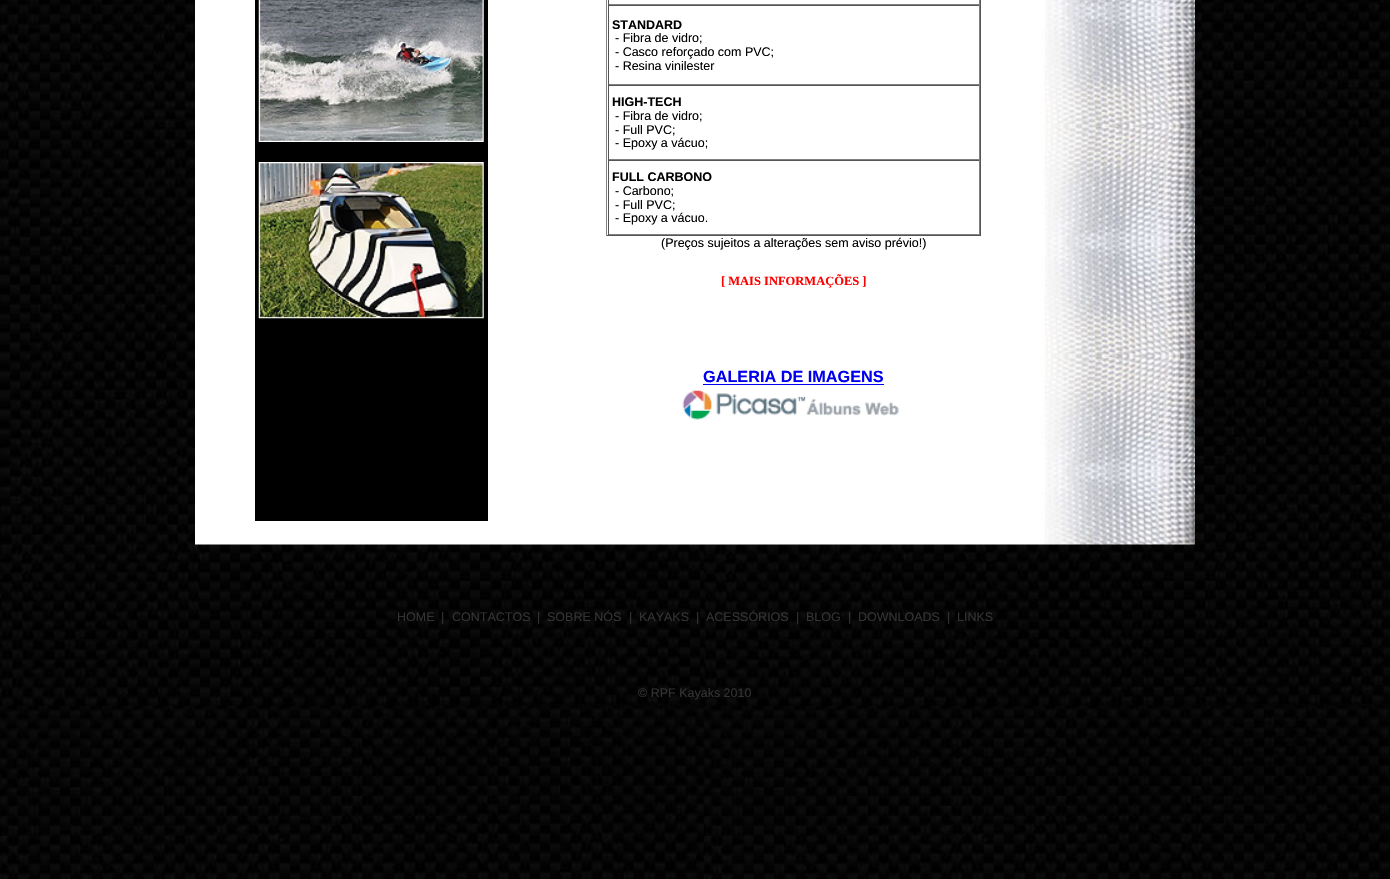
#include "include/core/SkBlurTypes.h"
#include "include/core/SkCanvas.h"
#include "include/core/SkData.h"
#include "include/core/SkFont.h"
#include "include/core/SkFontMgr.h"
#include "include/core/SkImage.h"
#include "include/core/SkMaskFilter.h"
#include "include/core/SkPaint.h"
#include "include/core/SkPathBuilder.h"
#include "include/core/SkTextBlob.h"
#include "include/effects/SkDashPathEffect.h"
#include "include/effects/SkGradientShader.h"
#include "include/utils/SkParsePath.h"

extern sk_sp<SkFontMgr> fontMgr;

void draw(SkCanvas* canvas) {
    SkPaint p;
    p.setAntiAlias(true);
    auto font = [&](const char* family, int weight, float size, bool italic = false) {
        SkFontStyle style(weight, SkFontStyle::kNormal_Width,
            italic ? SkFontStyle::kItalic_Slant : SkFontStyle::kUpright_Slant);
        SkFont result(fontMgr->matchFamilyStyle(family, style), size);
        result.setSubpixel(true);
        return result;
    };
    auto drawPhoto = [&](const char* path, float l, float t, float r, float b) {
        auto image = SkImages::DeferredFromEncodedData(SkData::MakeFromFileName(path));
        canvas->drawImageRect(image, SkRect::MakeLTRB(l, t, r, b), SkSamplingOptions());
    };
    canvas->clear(0xFFFFFFFF);
    drawPhoto("media/1.png", 0, 0, 1390, 879);
    drawPhoto("media/2.png", 195, 0, 1195, 545);
    p.setColor(0xFF000000);
    canvas->drawRect(SkRect::MakeLTRB(255, 0, 488, 521), p);
    drawPhoto("media/3.png", 258, 0, 484, 142);
    drawPhoto("media/4.png", 258, 162, 484, 319);
    {
        const struct { float l, t, r, b; SkColor color; } items[] = {
            {980, 0, 981, 236, 0xFF555555},
            {606, 235, 981, 236, 0xFF555555},
            {606, 0, 607, 236, 0xFF808080},
            {979, 0, 980, 5, 0xFF808080},
            {608, 4, 980, 5, 0xFF808080},
            {608, 0, 609, 5, 0xFF555555},
            {608, 5, 980, 6, 0xFF555555},
            {979, 5, 980, 85, 0xFF808080},
            {608, 84, 980, 85, 0xFF808080},
            {608, 5, 609, 85, 0xFF555555},
        };
        for (auto [l, t, r, b, color] : items) {
            p.setColor(color);
            canvas->drawRect(SkRect::MakeLTRB(l, t, r, b), p);
        }
    }
    auto font1 = font("Liberation Sans", 700, 12.5f);
    p.setColor(0xFF000000);
    canvas->drawString("STANDARD", 612, 29, font1, p);
    auto font2 = font("Liberation Sans", 400, 12.5f);
    {
        const struct { const char* s; float x, y; } items[] = {
            {"- Fibra de vidro;", 615, 42},
            {"- Casco reforçado com PVC;", 615, 56},
            {"- Resina vinilester", 615, 70},
        };
        for (auto [s, x, y] : items) {
            canvas->drawString(s, x, y, font2, p);
        }
    }
    {
        const struct { float l, t, r, b; SkColor color; } items[] = {
            {608, 85, 980, 86, 0xFF555555},
            {979, 85, 980, 160, 0xFF808080},
            {608, 159, 980, 160, 0xFF808080},
            {608, 85, 609, 160, 0xFF555555},
        };
        for (auto [l, t, r, b, color] : items) {
            p.setColor(color);
            canvas->drawRect(SkRect::MakeLTRB(l, t, r, b), p);
        }
    }
    p.setColor(0xFF000000);
    canvas->drawString("HIGH-TECH", 612, 106, font1, p);
    {
        const struct { const char* s; float x, y; } items[] = {
            {"- Fibra de vidro;", 615, 120},
            {"- Full PVC;", 615, 134},
            {"- Epoxy a vácuo;", 615, 147},
        };
        for (auto [s, x, y] : items) {
            canvas->drawString(s, x, y, font2, p);
        }
    }
    {
        const struct { float l, t, r, b; SkColor color; } items[] = {
            {608, 160, 980, 161, 0xFF555555},
            {979, 160, 980, 235, 0xFF808080},
            {608, 234, 980, 235, 0xFF808080},
            {608, 160, 609, 235, 0xFF555555},
        };
        for (auto [l, t, r, b, color] : items) {
            p.setColor(color);
            canvas->drawRect(SkRect::MakeLTRB(l, t, r, b), p);
        }
    }
    p.setColor(0xFF000000);
    canvas->drawString("FULL CARBONO", 612, 181, font1, p);
    {
        const struct { const char* s; float x, y; } items[] = {
            {"- Carbono;", 615, 195},
            {"- Full PVC;", 615, 209},
            {"- Epoxy a vácuo.", 615, 222},
            {"(Preços sujeitos a alterações sem aviso prévio!)", 661, 247},
        };
        for (auto [s, x, y] : items) {
            canvas->drawString(s, x, y, font2, p);
        }
    }
    auto font3 = font("Liberation Serif", 700, 12.5f);
    p.setColor(0xFFFF0000);
    canvas->drawString("[ MAIS INFORMAÇÕES ]", 721, 285, font3, p);
    auto font4 = font("Liberation Sans", 700, 16.25f);
    p.setColor(0xFF0000EE);
    canvas->drawString("GALERIA DE IMAGENS", 703, 382, font4, p);
    canvas->drawRect(SkRect::MakeLTRB(703, 384, 884, 385), p);
    drawPhoto("media/5.png", 682, 390, 899, 420);
    p.setColor(0xFF333333);
    {
        const struct { const char* s; float x, y; } items[] = {
            {"HOME", 397, 621},
            {"|", 441, 621},
            {"CONTACTOS", 452, 621},
            {"|", 537, 621},
            {"SOBRE NÓS", 547, 621},
            {"|", 629, 621},
            {"KAYAKS", 639, 621},
            {"|", 696, 621},
            {"ACESSÓRIOS", 706, 621},
            {"|", 796, 621},
            {"BLOG", 806, 621},
            {"|", 848, 621},
            {"DOWNLOADS", 858, 621},
            {"|", 947, 621},
            {"LINKS", 957, 621},
            {"© RPF Kayaks 2010", 638, 697},
        };
        for (auto [s, x, y] : items) {
            canvas->drawString(s, x, y, font2, p);
        }
    }
}
